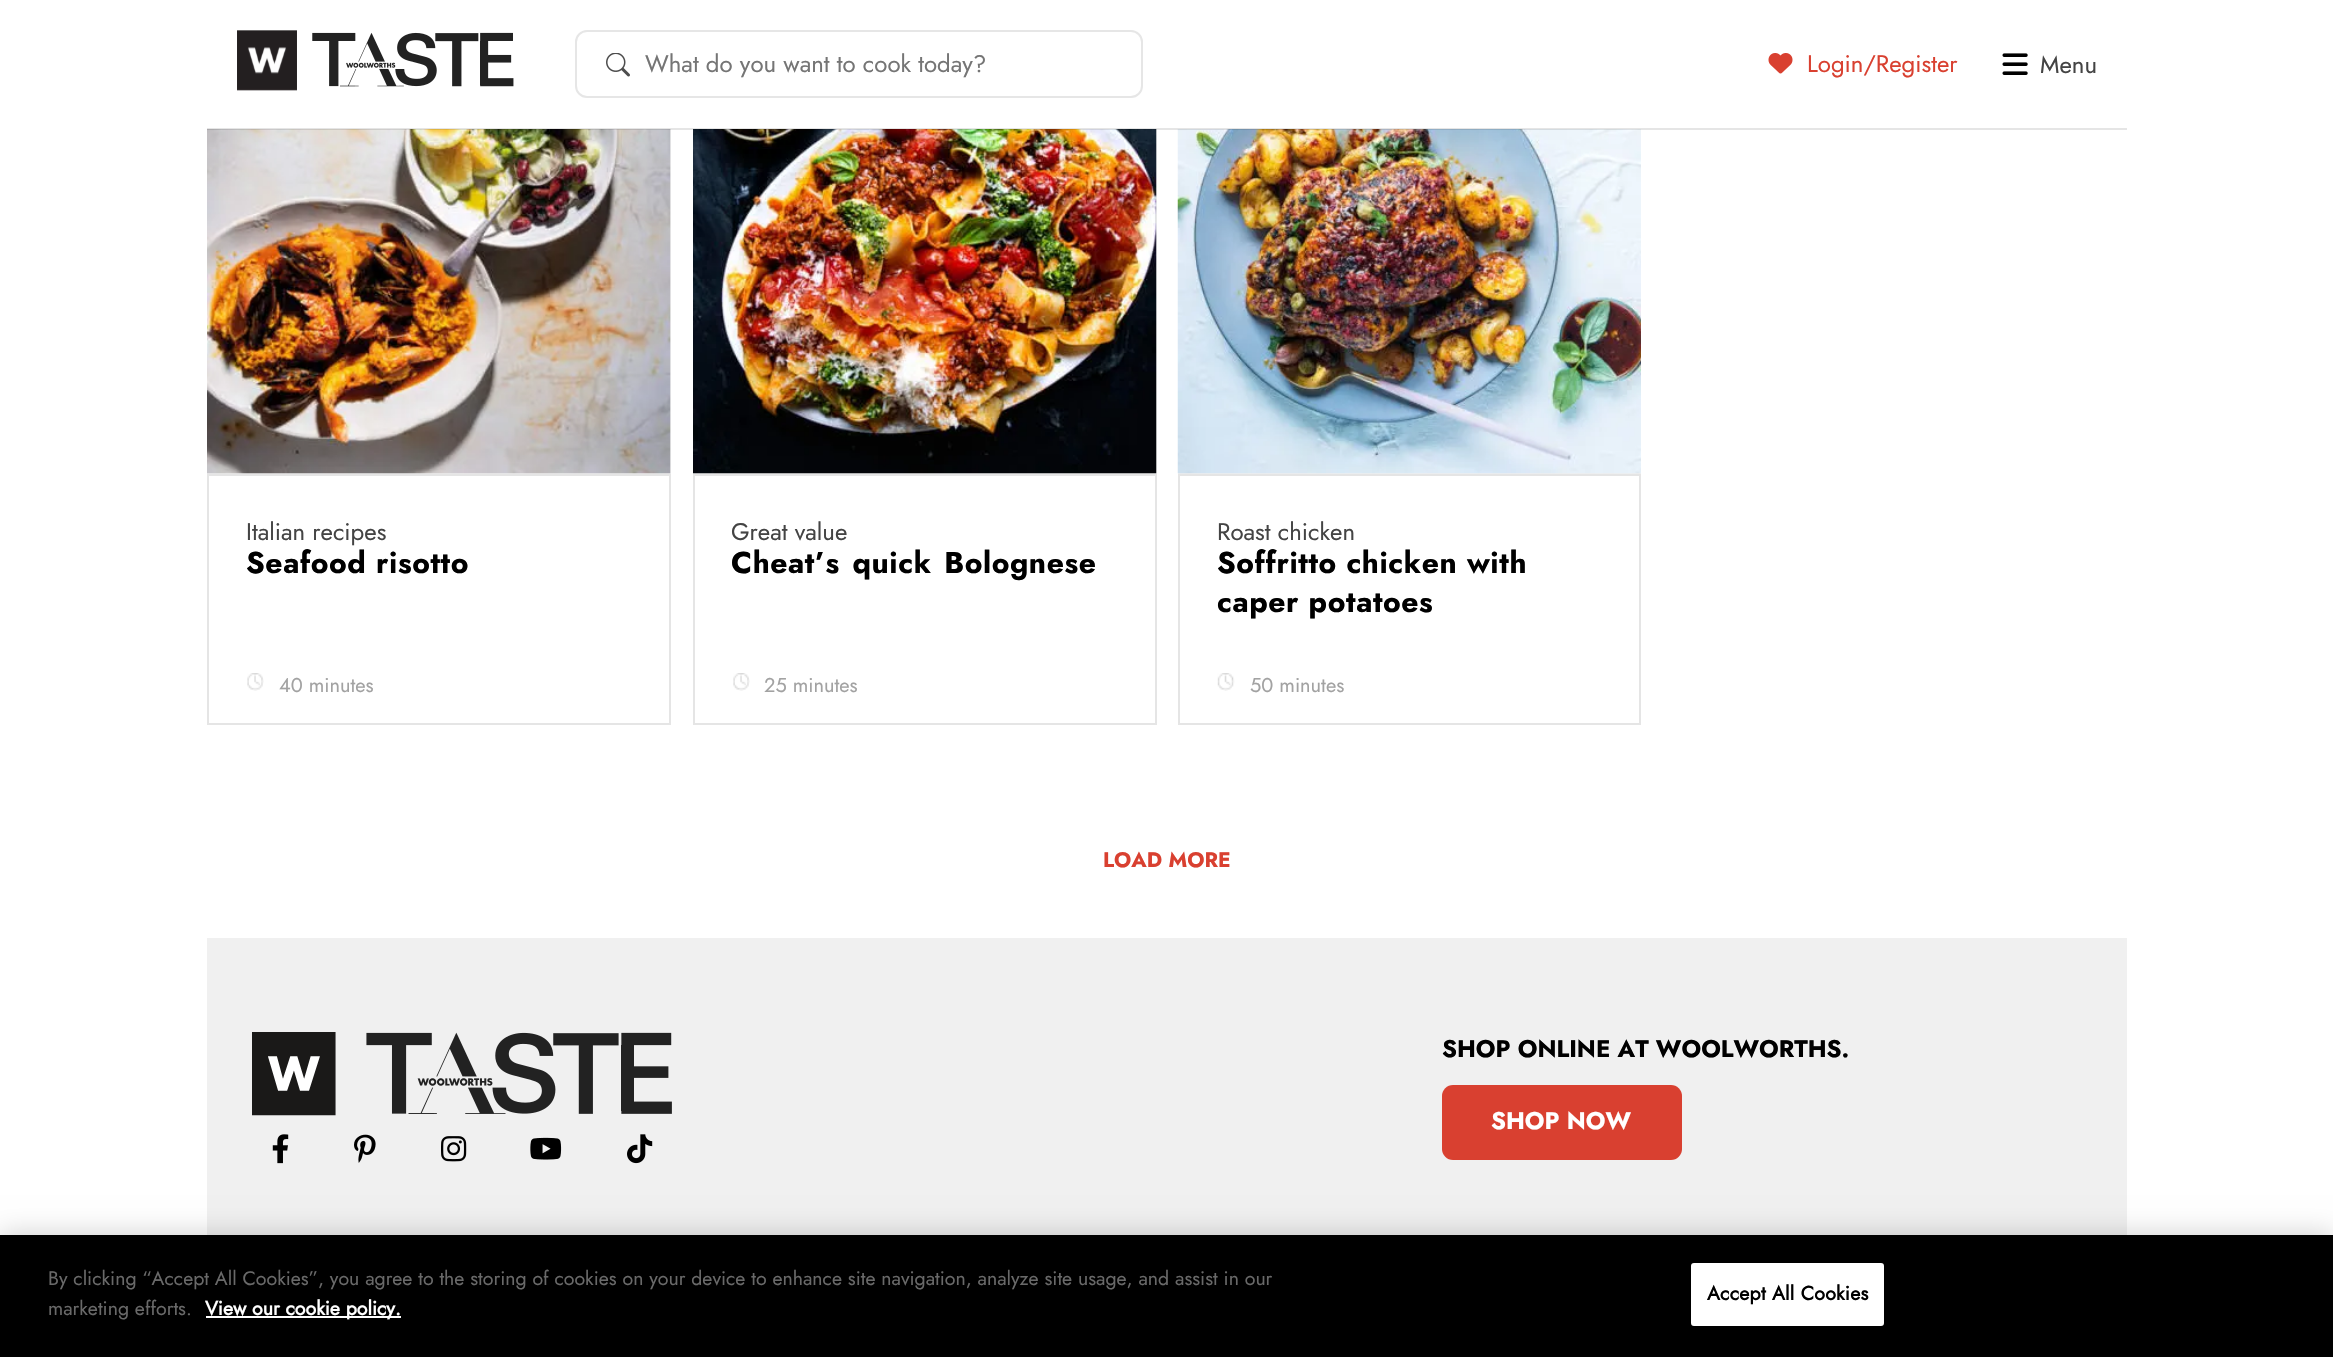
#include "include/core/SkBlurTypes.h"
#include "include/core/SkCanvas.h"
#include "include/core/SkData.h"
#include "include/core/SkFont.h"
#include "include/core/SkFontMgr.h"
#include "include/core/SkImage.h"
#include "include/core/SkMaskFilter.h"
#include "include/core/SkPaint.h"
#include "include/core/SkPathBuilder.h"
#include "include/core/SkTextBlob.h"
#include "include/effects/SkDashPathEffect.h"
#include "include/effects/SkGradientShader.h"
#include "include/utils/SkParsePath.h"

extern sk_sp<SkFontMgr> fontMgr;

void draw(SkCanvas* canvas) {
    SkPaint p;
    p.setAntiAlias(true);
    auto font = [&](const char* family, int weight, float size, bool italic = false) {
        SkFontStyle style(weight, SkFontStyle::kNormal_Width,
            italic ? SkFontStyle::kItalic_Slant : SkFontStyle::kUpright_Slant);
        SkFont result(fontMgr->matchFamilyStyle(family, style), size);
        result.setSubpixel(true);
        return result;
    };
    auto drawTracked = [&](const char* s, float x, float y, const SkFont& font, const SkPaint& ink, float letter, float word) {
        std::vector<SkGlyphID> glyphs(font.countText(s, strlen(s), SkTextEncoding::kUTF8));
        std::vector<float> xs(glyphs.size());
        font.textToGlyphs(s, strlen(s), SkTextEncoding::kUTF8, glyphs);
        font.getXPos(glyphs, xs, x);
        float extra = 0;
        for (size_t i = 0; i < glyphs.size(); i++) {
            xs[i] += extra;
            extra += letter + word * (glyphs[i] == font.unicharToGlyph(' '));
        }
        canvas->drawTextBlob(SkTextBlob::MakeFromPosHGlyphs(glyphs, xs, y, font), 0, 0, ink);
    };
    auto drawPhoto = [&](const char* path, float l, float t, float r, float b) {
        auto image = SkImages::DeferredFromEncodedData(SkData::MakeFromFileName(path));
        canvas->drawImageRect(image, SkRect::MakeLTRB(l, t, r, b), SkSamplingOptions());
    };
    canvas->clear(0xFFFFFFFF);
    p.setColor(0xFFEEEEEE);
    canvas->drawRect(SkRect::MakeLTRB(207, 129, 671, 474), p);
    drawPhoto("media/6.png", 207, 129, 671, 474);
    canvas->drawRect(SkRect::MakeLTRB(693, 129, 1157, 474), p);
    drawPhoto("media/8.png", 693, 129, 1157, 474);
    canvas->drawRect(SkRect::MakeLTRB(1178, 473, 1641, 474), p);
    drawPhoto("media/10.png", 1177, 129, 1641, 474);
    p.setColor(0x1A000000);
    canvas->drawRect(SkRect::MakeLTRB(207, 128, 2127, 130), p);
    drawPhoto("media/1.png", 237, 30, 297, 91);
    drawPhoto("media/2.png", 312, 32, 514, 87);
    p.setStyle(SkPaint::kStroke_Style);
    p.setStrokeWidth(2);
    p.setColor(0xFFE6E6E6);
    canvas->drawRoundRect(SkRect::MakeLTRB(576, 31, 1142, 97), 11, 11, p);
    drawPhoto("media/3.png", 606, 53, 630, 77);
    auto font1 = font("Jost", 400, 24);
    p.setStyle(SkPaint::kFill_Style);
    p.setColor(0xFF757575);
    canvas->drawString("What do you want to cook today?", 645, 72, font1, p);
    drawPhoto("media/4.png", 1768, 53, 1793, 74);
    p.setColor(0xFFD94030);
    canvas->drawString("Login/Register", 1807, 72, font1, p);
    drawPhoto("media/5.png", 2002, 53, 2028, 75);
    p.setColor(0xFF444444);
    canvas->drawString("Menu", 2040, 73, font1, p);
    p.setStyle(SkPaint::kStroke_Style);
    p.setColor(0xFFE5E5E5);
    canvas->drawRect(SkRect::MakeLTRB(208, 475, 670, 724), p);
    p.setStyle(SkPaint::kFill_Style);
    p.setColor(0xFF444444);
    canvas->drawString("Italian recipes", 246, 540, font1, p);
    auto font2 = font("Jost", 700, 30);
    p.setColor(0xFF000000);
    drawTracked("Seafood risotto", 246, 573, font2, p, 0.6f, 0);
    drawPhoto("media/7.png", 247, 673, 264, 691);
    auto font3 = font("Jost", 400, 20);
    p.setColor(0xFFA2A2A2);
    canvas->drawString("40 minutes", 279, 692, font3, p);
    p.setStyle(SkPaint::kStroke_Style);
    p.setColor(0xFFE5E5E5);
    canvas->drawRect(SkRect::MakeLTRB(694, 475, 1156, 724), p);
    p.setStyle(SkPaint::kFill_Style);
    p.setColor(0xFF444444);
    canvas->drawString("Great value", 731, 540, font1, p);
    p.setColor(0xFF000000);
    drawTracked("Cheat’s quick Bolognese", 731, 573, font2, p, 0.6f, 3);
    drawPhoto("media/9.png", 733, 673, 750, 691);
    p.setColor(0xFFA2A2A2);
    canvas->drawString("25 minutes", 764, 692, font3, p);
    p.setStyle(SkPaint::kStroke_Style);
    p.setColor(0xFFE5E5E5);
    canvas->drawRect(SkRect::MakeLTRB(1179, 475, 1640, 724), p);
    p.setStyle(SkPaint::kFill_Style);
    p.setColor(0xFF444444);
    canvas->drawString("Roast chicken", 1217, 540, font1, p);
    p.setColor(0xFF000000);
    drawTracked("Soffritto chicken with", 1217, 573, font2, p, 0.6f, 0);
    drawTracked("caper potatoes", 1217, 612, font2, p, 0.6f, 0);
    drawPhoto("media/11.png", 1217, 673, 1235, 691);
    p.setColor(0xFFA2A2A2);
    canvas->drawString("50 minutes", 1250, 692, font3, p);
    auto font4 = font("Jost", 700, 21);
    p.setColor(0xFFD94030);
    canvas->drawString("LOAD MORE", 1103, 867, font4, p);
    p.setColor(0xFFF0F0F0);
    canvas->drawRect(SkRect::MakeLTRB(207, 938, 2127, 1235), p);
    drawPhoto("media/12.png", 252, 1032, 336, 1116);
    drawPhoto("media/13.png", 366, 1032, 672, 1114);
    drawPhoto("media/14.png", 272, 1134, 289, 1164);
    drawPhoto("media/15.png", 354, 1134, 376, 1163);
    drawPhoto("media/16.png", 441, 1136, 467, 1162);
    drawPhoto("media/17.png", 530, 1137, 562, 1160);
    drawPhoto("media/18.png", 627, 1134, 653, 1164);
    auto font5 = font("Jost", 700, 24);
    p.setColor(0xFF000000);
    canvas->drawString("SHOP ONLINE AT WOOLWORTHS.", 1442, 1057, font5, p);
    p.setColor(0xFFD94030);
    canvas->drawRoundRect(SkRect::MakeLTRB(1442, 1085, 1682, 1160), 11, 11, p);
    p.setColor(0xFFFFFFFF);
    canvas->drawString("SHOP NOW", 1491, 1129, font5, p);
    p.setColor(0x33000000);
    p.setMaskFilter(SkMaskFilter::MakeBlur(kNormal_SkBlurStyle, 13.5f));
    canvas->drawRect(SkRect::MakeLTRB(0, 1235, 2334, 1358), p);
    p.setMaskFilter(nullptr);
    p.setColor(0xFF000000);
    canvas->drawRect(SkRect::MakeLTRB(0, 1235, 2333, 1357), p);
    auto font6 = font("Jost", 400, 19.5f);
    p.setColor(0xFF696969);
    canvas->drawString("By clicking “Accept All Cookies”, you agree to the storing of cookies on your device to enhance site navigation, analyze site usage, and assist in our", 48, 1285, font6, p);
    canvas->drawString("marketing efforts.", 48, 1315, font6, p);
    p.setColor(0xFFFFFFFF);
    canvas->drawRect(SkRect::MakeLTRB(206, 1316, 401, 1318), p);
    auto font7 = font("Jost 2", 700, 19.5f);
    canvas->drawString("View our cookie policy.", 205, 1315, font7, p);
    canvas->drawRoundRect(SkRect::MakeLTRB(1692, 1264, 1883, 1325), 2, 2, p);
    p.setStyle(SkPaint::kStroke_Style);
    canvas->drawRoundRect(SkRect::MakeLTRB(1692, 1264, 1883, 1325), 2, 2, p);
    p.setStyle(SkPaint::kFill_Style);
    p.setColor(0xFF000000);
    drawTracked("Accept All Cookies", 1707, 1300, font7, p, 0.25f, 0);
}
